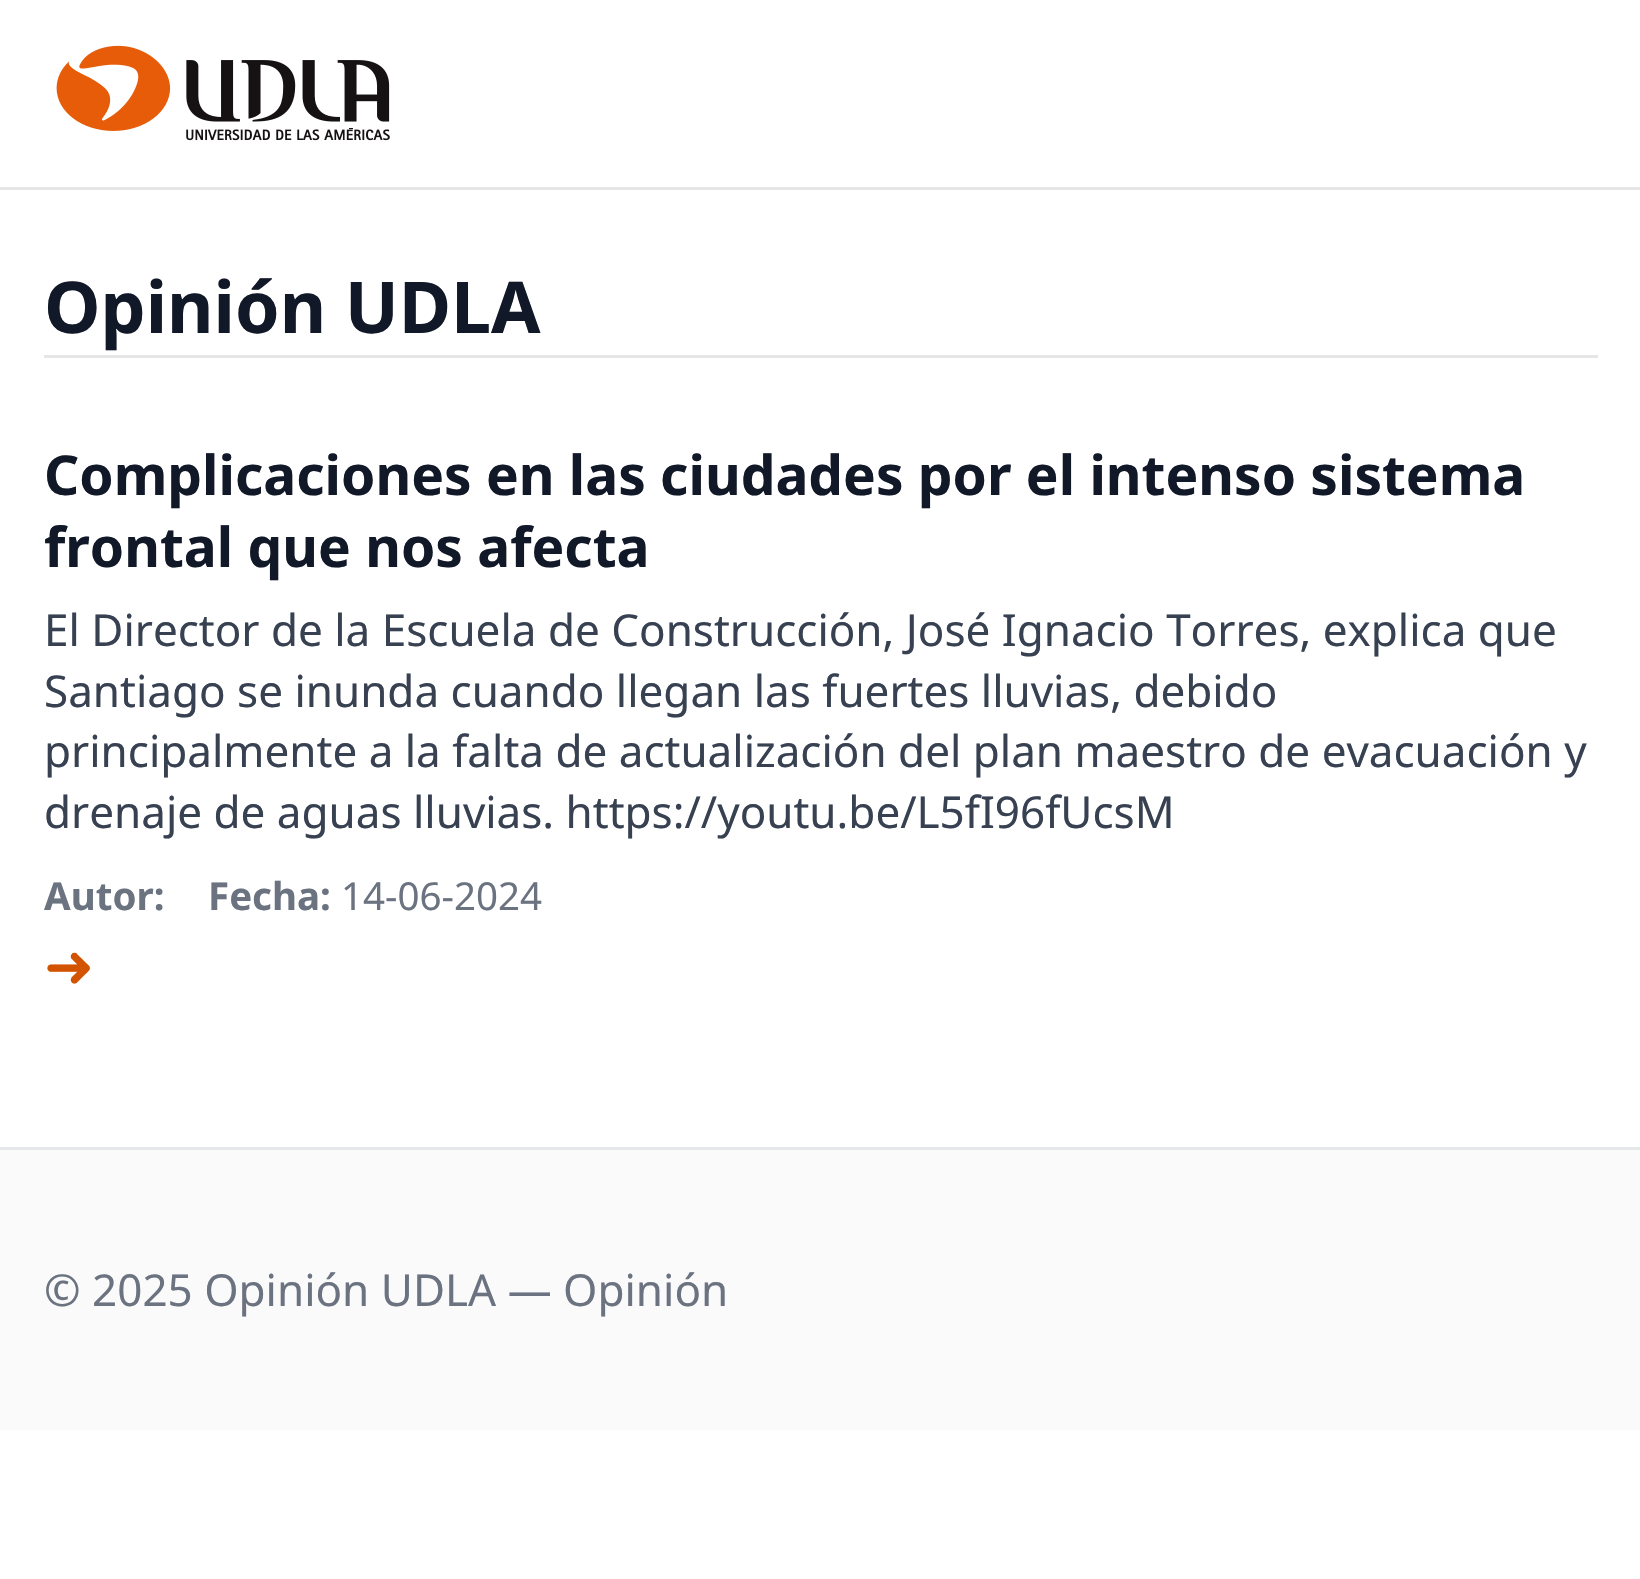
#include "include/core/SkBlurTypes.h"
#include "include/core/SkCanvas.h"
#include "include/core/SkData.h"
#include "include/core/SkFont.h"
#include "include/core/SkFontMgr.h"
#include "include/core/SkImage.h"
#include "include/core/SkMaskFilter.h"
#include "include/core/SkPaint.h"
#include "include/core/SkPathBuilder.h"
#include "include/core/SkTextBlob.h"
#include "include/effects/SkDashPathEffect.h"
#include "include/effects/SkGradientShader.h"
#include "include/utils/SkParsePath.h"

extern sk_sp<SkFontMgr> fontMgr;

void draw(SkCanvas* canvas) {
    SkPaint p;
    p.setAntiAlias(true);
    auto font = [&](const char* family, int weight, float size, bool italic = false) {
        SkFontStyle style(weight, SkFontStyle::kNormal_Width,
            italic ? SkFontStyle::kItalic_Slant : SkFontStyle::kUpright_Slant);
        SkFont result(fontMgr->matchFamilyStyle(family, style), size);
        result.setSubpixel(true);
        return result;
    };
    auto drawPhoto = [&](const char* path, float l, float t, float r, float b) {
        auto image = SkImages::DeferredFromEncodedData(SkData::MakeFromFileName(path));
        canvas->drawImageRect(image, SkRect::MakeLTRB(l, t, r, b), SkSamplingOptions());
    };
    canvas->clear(0xFFFFFFFF);
    p.setColor(0xFFE6E6E6);
    canvas->drawRect(SkRect::MakeLTRB(0, 187, 1640, 190), p);
    drawPhoto("media/1.png", 56, 45, 390, 141);
    canvas->drawRect(SkRect::MakeLTRB(44, 355, 1598, 358), p);
    auto font1 = font("Noto Sans", 700, 71.5f);
    p.setColor(0xFF111827);
    canvas->drawString("Opinión UDLA", 44, 333, font1, p);
    auto font2 = font("Noto Sans", 700, 55);
    canvas->drawString("Complicaciones en las ciudades por el intenso sistema", 44, 495, font2, p);
    canvas->drawString("frontal que nos afecta", 44, 567, font2, p);
    auto font3 = font("Noto Sans", 400, 44);
    p.setColor(0xFF374151);
    {
        const struct { const char* s; float x, y; } items[] = {
            {"El Director de la Escuela de Construcción, José Ignacio Torres, explica que", 44, 646},
            {"Santiago se inunda cuando llegan las fuertes lluvias, debido", 44, 707},
            {"principalmente a la falta de actualización del plan maestro de evacuación y", 44, 767},
            {"drenaje de aguas lluvias. https://youtu.be/L5fI96fUcsM", 44, 828},
        };
        for (auto [s, x, y] : items) {
            canvas->drawString(s, x, y, font3, p);
        }
    }
    auto font4 = font("Noto Sans", 700, 38.5f);
    p.setColor(0xFF6B7280);
    canvas->drawString("Autor:", 44, 910, font4, p);
    canvas->drawString("Fecha:", 208, 910, font4, p);
    auto font5 = font("Noto Sans", 400, 38.5f);
    canvas->drawString("14-06-2024", 341, 910, font5, p);
    auto font6 = font("DejaVu Sans", 400, 60);
    p.setColor(0xFFD35400);
    canvas->drawString("➜", 44, 987, font6, p);
    p.setColor(0xFFFAFAFA);
    canvas->drawRect(SkRect::MakeLTRB(0, 1150, 1640, 1430), p);
    p.setColor(0xFFE5E7EB);
    canvas->drawRect(SkRect::MakeLTRB(0, 1147, 1640, 1150), p);
    p.setColor(0xFF6B7280);
    canvas->drawString("© 2025 Opinión UDLA — Opinión", 44, 1306, font3, p);
}
